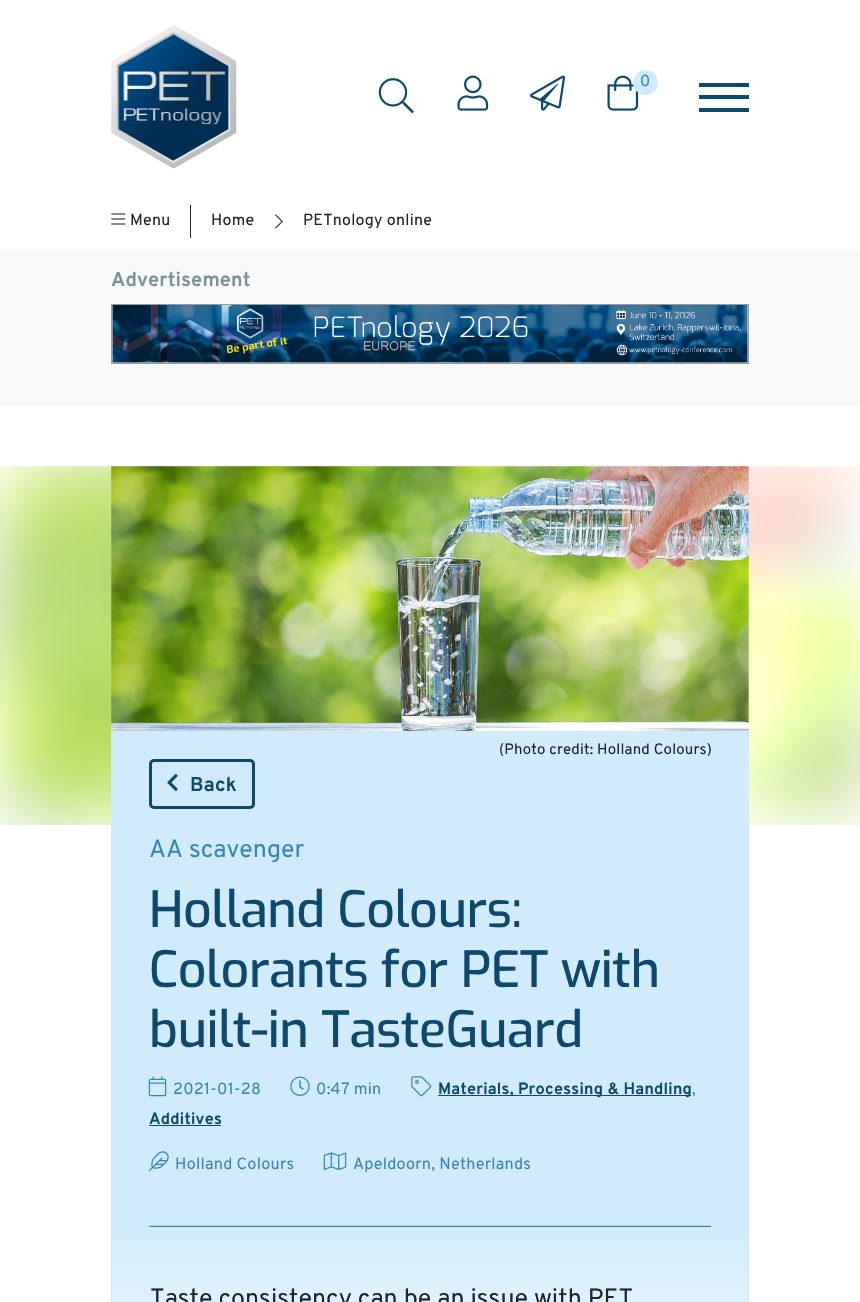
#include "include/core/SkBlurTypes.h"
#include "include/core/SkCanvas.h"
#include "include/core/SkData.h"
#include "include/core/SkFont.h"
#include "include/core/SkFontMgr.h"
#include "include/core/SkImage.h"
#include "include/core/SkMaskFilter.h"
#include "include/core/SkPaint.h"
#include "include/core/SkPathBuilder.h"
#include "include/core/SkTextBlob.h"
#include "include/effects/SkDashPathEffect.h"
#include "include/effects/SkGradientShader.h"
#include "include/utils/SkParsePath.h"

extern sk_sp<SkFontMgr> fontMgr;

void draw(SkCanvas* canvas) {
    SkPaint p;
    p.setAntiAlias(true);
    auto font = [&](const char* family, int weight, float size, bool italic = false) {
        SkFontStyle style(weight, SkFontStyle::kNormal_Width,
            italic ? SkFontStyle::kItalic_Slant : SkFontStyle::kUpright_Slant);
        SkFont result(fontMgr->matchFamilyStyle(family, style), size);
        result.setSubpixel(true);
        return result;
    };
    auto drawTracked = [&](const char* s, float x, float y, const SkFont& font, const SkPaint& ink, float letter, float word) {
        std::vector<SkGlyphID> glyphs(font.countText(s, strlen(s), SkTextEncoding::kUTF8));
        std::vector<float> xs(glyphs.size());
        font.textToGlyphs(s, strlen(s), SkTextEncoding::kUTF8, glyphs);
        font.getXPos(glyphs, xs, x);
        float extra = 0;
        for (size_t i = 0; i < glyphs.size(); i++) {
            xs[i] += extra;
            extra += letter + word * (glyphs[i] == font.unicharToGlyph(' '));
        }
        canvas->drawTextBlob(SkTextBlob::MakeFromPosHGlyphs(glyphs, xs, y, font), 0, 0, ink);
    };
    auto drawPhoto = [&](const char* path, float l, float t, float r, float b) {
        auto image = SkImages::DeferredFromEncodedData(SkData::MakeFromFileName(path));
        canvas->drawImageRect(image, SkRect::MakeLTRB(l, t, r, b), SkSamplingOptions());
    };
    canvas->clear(0xFFFFFFFF);
    drawPhoto("media/1.png", 111, 25, 237, 169);
    drawPhoto("media/2.png", 378, 78, 414, 114);
    drawPhoto("media/3.png", 457, 75, 489, 111);
    drawPhoto("media/4.png", 530, 75, 566, 111);
    drawPhoto("media/5.png", 607, 75, 639, 111);
    p.setColor(0xFFD0ECFC);
    canvas->drawCircle(645.5f, 82.5f, 12.5f, p);
    auto font1 = font("Overpass", 400, 16);
    p.setColor(0xFF3785B4);
    drawTracked("0", 640, 86, font1, p, 0.25f, 0);
    {
        const struct { float l, t, r, b; SkColor color; } items[] = {
            {699, 83, 749, 87, 0xFF0E486A},
            {699, 95, 749, 99, 0xFF0E486A},
            {699, 108, 749, 112, 0xFF0E486A},
        };
        for (auto [l, t, r, b, color] : items) {
            p.setColor(color);
            canvas->drawRect(SkRect::MakeLTRB(l, t, r, b), p);
        }
    }
    drawPhoto("media/6.png", 111, 213, 126, 225);
    p.setColor(0xFF212529);
    drawTracked("Menu", 130, 225, font1, p, 0.25f, 0);
    canvas->drawRect(SkRect::MakeLTRB(190, 205, 191, 238), p);
    drawTracked("Home", 211, 225, font1, p, 0.25f, 0);
    drawPhoto("media/7.png", 275, 214, 283, 229);
    drawTracked("PETnology online", 303, 225, font1, p, 0.25f, 0);
    p.setColor(0xFFF6F8F9);
    canvas->drawRect(SkRect::MakeLTRB(0, 249, 860, 406), p);
    auto font2 = font("Overpass", 700, 20);
    p.setColor(0xFF7D909A);
    drawTracked("Advertisement", 111, 286, font2, p, 0.2f, 0);
    p.setStyle(SkPaint::kStroke_Style);
    p.setStrokeWidth(1);
    p.setColor(0xFF999999);
    canvas->drawRect(SkRect::MakeLTRB(111.5f, 304.5f, 748.5f, 363.5f), p);
    drawPhoto("media/8.png", 112, 305, 748, 363);
    drawPhoto("media/9.png", 0, 466, 860, 825);
    drawPhoto("media/10.png", 111, 466, 749, 731);
    p.setStyle(SkPaint::kFill_Style);
    p.setColor(0xFFD0ECFC);
    canvas->drawRect(SkRect::MakeLTRB(111, 731, 749, 1228), p);
    auto font3 = font("Overpass", 400, 15);
    p.setColor(0xFF212529);
    drawTracked("(Photo credit: Holland Colours)", 499, 754, font3, p, 0.2f, 0);
    p.setStyle(SkPaint::kStroke_Style);
    p.setStrokeWidth(3);
    p.setColor(0xFF0E486A);
    canvas->drawRoundRect(SkRect::MakeLTRB(150.5f, 760.5f, 253.5f, 807.5f), 3.5f, 3.5f, p);
    drawPhoto("media/11.png", 167, 774, 178, 791);
    p.setStyle(SkPaint::kFill_Style);
    drawTracked("Back", 190, 791, font2, p, 0.2f, 0);
    auto font4 = font("Overpass", 400, 25);
    p.setColor(0xFF3785B4);
    drawTracked("AA scavenger", 149, 857, font4, p, 0.05f, 0);
    auto font5 = font("Exo", 500, 50);
    p.setColor(0xFF0E486A);
    {
        const struct { const char* s; float x, y; } items[] = {
            {"Holland Colours:", 149, 927},
            {"Colorants for PET with", 149, 987},
            {"built-in TasteGuard", 149, 1047},
        };
        for (auto [s, x, y] : items) {
            drawTracked(s, x, y, font5, p, -0.45f, 0);
        }
    }
    drawPhoto("media/12.png", 148, 1076, 167, 1097);
    auto font6 = font("Overpass", 400, 16.25f);
    p.setColor(0xFF3785B4);
    drawTracked("2021-01-28", 173, 1094, font6, p, 0.25f, 0);
    drawPhoto("media/13.png", 290, 1076, 310, 1096);
    drawTracked("0:47 min", 316, 1094, font6, p, 0.25f, 0);
    drawPhoto("media/14.png", 411, 1076, 432, 1097);
    p.setColor(0xFF0E486A);
    canvas->drawRect(SkRect::MakeLTRB(438, 1095, 691, 1096), p);
    auto font7 = font("Overpass", 700, 16.25f);
    drawTracked("Materials, Processing & Handling", 438, 1094, font7, p, 0.25f, 0);
    p.setColor(0xFF3785B4);
    drawTracked(",", 692, 1094, font6, p, 0.25f, 0);
    p.setColor(0xFF0E486A);
    drawTracked("Additives", 149, 1124, font7, p, 0.25f, 0);
    canvas->drawRect(SkRect::MakeLTRB(149, 1125, 221, 1126), p);
    drawPhoto("media/15.png", 148, 1151, 169, 1172);
    p.setColor(0xFF3785B4);
    drawTracked("Holland Colours", 175, 1169, font6, p, 0.25f, 0);
    drawPhoto("media/16.png", 323, 1152, 347, 1170);
    drawTracked("Apeldoorn, Netherlands", 353, 1169, font6, p, 0.25f, 0);
    p.setColor(0xFFBBD4E3);
    canvas->drawRect(SkRect::MakeLTRB(149, 1225, 711, 1226), p);
    p.setColor(0xFF3785B4);
    canvas->drawRect(SkRect::MakeLTRB(149, 1226, 711, 1227), p);
    {
        const SkColor colors[] = {0xFFD0ECFC, 0xFFFFFFFF};
        const float stops[] = {0, 1};
        const SkPoint ends[] = {{430, 1228}, {430, 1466}};
        p.setShader(SkGradientShader::MakeLinear(ends, colors, stops, 2, SkTileMode::kClamp));
        p.setAlpha(255);
    }
    canvas->drawRect(SkRect::MakeLTRB(112, 1228, 748, 1302), p);
    p.setShader(nullptr);
    p.setColor(0xFFD0ECFC);
    canvas->drawRect(SkRect::MakeLTRB(748, 1228, 749, 1302), p);
    canvas->drawRect(SkRect::MakeLTRB(111, 1228, 112, 1302), p);
    p.setColor(0xFF212529);
    drawTracked("Taste consistency can be an issue with PET", 150, 1306, font4, p, 0.05f, 0);
}
